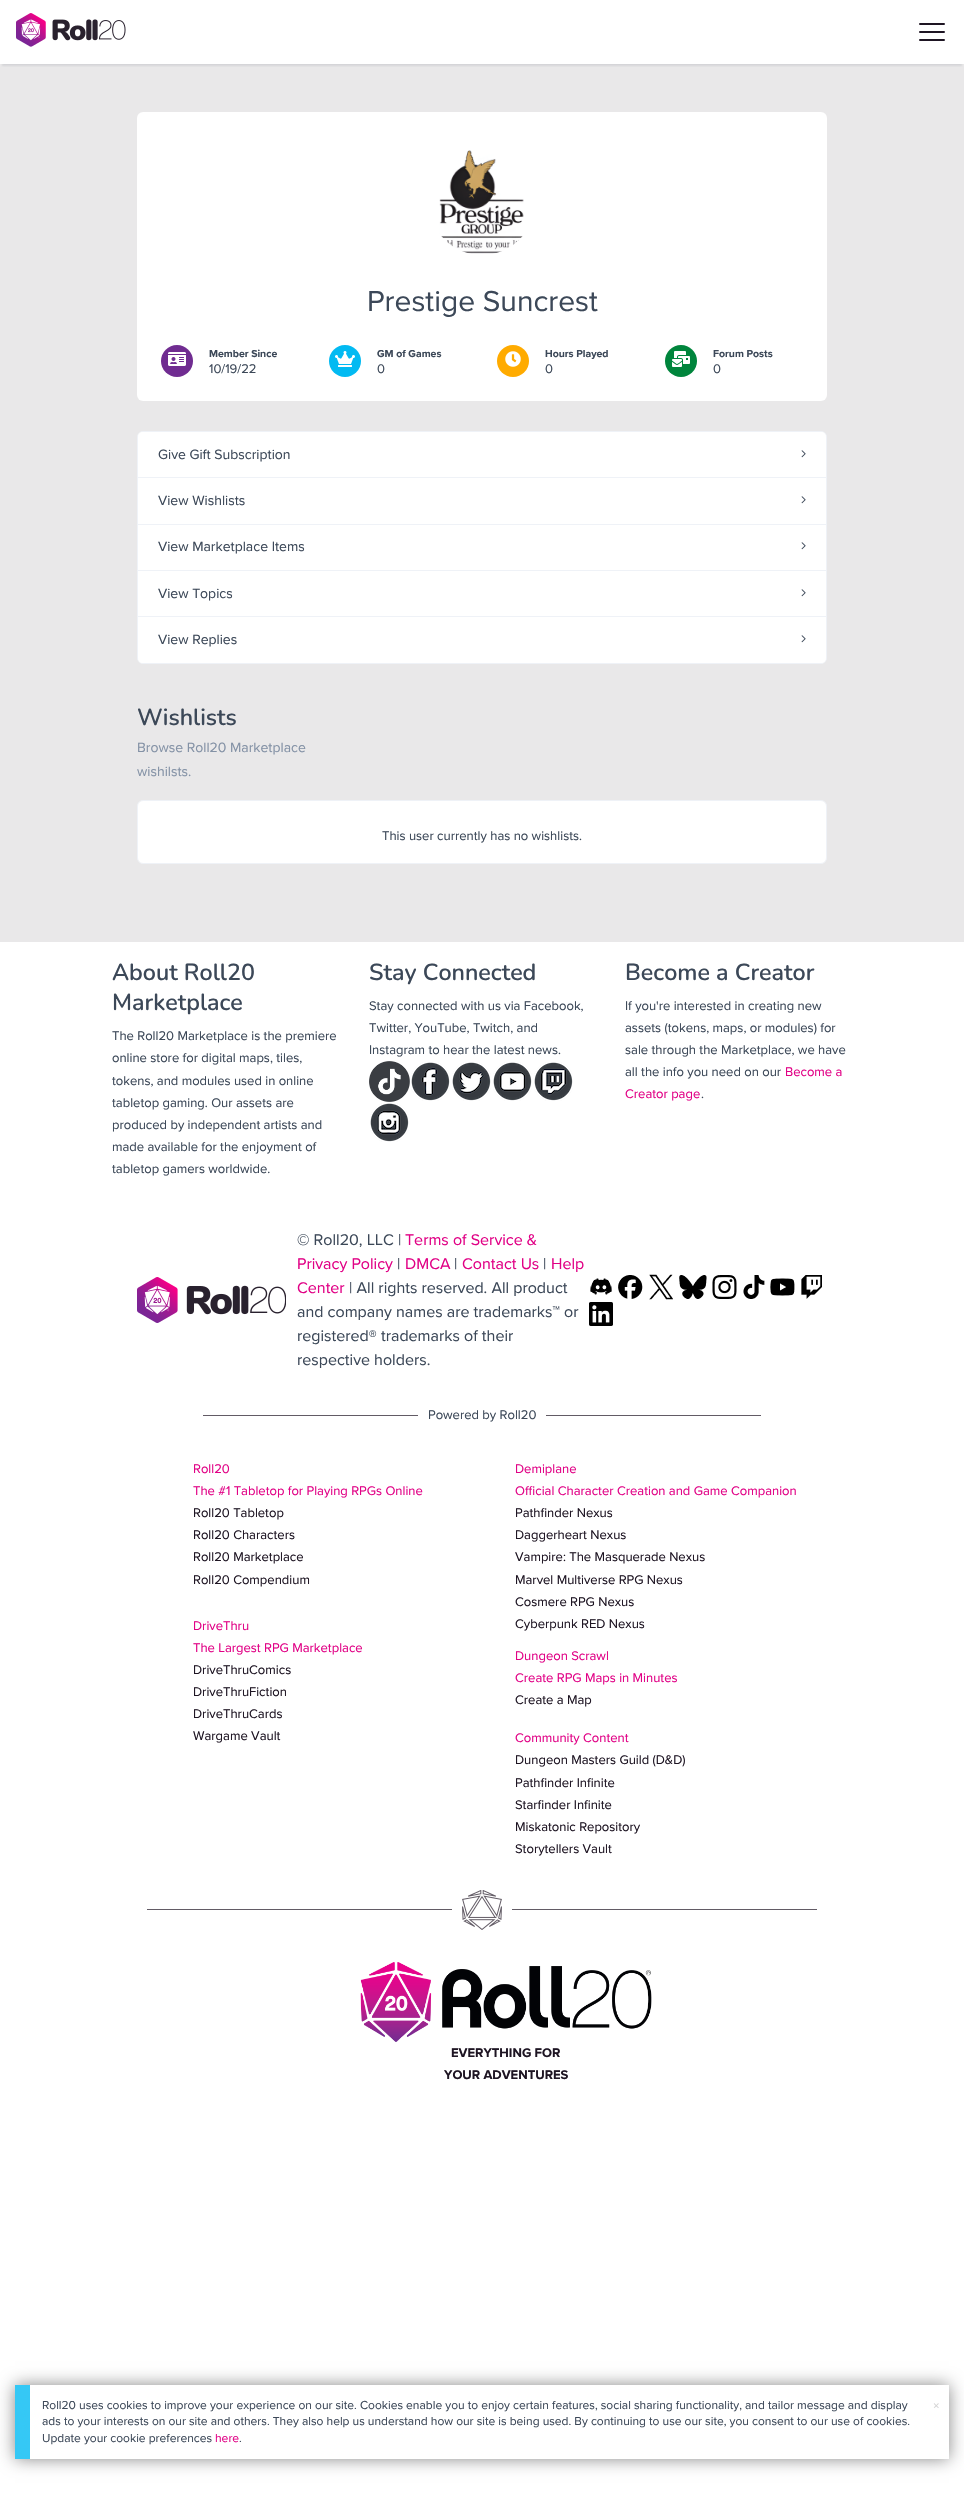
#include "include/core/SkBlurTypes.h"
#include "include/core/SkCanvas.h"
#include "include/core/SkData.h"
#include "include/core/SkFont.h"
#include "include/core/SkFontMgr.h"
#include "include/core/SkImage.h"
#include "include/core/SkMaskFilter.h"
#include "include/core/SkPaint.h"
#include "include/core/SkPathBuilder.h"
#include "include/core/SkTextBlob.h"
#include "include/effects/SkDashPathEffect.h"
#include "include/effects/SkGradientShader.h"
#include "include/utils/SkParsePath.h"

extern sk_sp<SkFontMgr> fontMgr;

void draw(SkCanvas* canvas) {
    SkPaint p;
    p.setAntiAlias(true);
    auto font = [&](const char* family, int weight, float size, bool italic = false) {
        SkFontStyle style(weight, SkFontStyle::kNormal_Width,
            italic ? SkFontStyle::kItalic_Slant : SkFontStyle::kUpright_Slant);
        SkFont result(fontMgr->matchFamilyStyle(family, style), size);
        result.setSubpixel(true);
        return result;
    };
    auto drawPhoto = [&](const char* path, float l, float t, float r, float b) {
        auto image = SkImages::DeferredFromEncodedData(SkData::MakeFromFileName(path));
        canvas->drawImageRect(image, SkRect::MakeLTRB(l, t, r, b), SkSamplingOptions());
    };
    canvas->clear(0xFFFFFFFF);
    p.setColor(0xFFE9E8E9);
    canvas->drawRect(SkRect::MakeLTRB(0, 64, 964, 942), p);
    canvas->save();
    canvas->clipRect(SkRect::MakeLTRB(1, 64, 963, 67));
    p.setColor(0x1A1F2937);
    p.setMaskFilter(SkMaskFilter::MakeBlur(kNormal_SkBlurStyle, 1));
    canvas->drawRect(SkRect::MakeLTRB(2, 6, 962, 66), p);
    p.setMaskFilter(nullptr);
    canvas->restore();
    drawPhoto("media/1.png", 16, 13, 126, 47);
    p.setStyle(SkPaint::kStroke_Style);
    p.setStrokeWidth(2);
    p.setStrokeCap(SkPaint::kRound_Cap);
    p.setStrokeJoin(SkPaint::kRound_Join);
    p.setColor(0xFF1E1523);
    canvas->drawPath(SkPathBuilder().moveTo(920, 32).lineTo(944, 32).moveTo(920, 24).lineTo(944, 24).moveTo(920, 40).lineTo(944, 40).detach(), p);
    p.setStyle(SkPaint::kFill_Style);
    p.setColor(0xFFFFFFFF);
    canvas->drawRoundRect(SkRect::MakeLTRB(137, 112, 827, 401), 6, 6, p);
    drawPhoto("media/2.png", 439, 150, 524, 254);
    auto font1 = font("Proxima Nova", 400, 30);
    p.setColor(0xFF3C4858);
    canvas->drawString("Prestige Suncrest", 367, 311, font1, p);
    p.setColor(0xFF702C91);
    canvas->drawCircle(177, 361, 16, p);
    drawPhoto("media/3.png", 168, 352, 186, 366);
    auto font2 = font("Proxima Nova", 700, 10.5f);
    p.setColor(0xFF3C4858);
    canvas->drawString("Member Since", 209, 357, font2, p);
    auto font3 = font("Proxima Nova", 400, 13);
    canvas->drawString("10/19/22", 209, 373, font3, p);
    p.setColor(0xFF02BAF2);
    canvas->drawCircle(345, 361, 16, p);
    drawPhoto("media/4.png", 335, 351, 355, 367);
    p.setColor(0xFF3C4858);
    canvas->drawString("GM of Games", 377, 357, font2, p);
    canvas->drawString("0", 377, 373, font3, p);
    p.setColor(0xFFFFAB00);
    canvas->drawCircle(513, 361, 16, p);
    drawPhoto("media/5.png", 505, 351, 521, 367);
    p.setColor(0xFF3C4858);
    canvas->drawString("Hours Played", 545, 357, font2, p);
    canvas->drawString("0", 545, 373, font3, p);
    p.setColor(0xFF00853C);
    canvas->drawCircle(681, 361, 16, p);
    drawPhoto("media/6.png", 672, 351, 690, 367);
    p.setColor(0xFF3C4858);
    canvas->drawString("Forum Posts", 713, 357, font2, p);
    canvas->drawString("0", 713, 373, font3, p);
    p.setColor(0xFFFFFFFF);
    canvas->drawRoundRect(SkRect::MakeLTRB(137.5f, 431.5f, 826.5f, 663.5f), 5.5f, 5.5f, p);
    p.setStyle(SkPaint::kStroke_Style);
    p.setStrokeWidth(1);
    p.setStrokeCap(SkPaint::kButt_Cap);
    p.setStrokeJoin(SkPaint::kMiter_Join);
    p.setColor(0xFFEFF2F7);
    canvas->drawRoundRect(SkRect::MakeLTRB(137.5f, 431.5f, 826.5f, 663.5f), 5.5f, 5.5f, p);
    p.setStyle(SkPaint::kFill_Style);
    p.setColor(0xFFFFFFFF);
    canvas->drawPath(SkPathBuilder().moveTo(143, 432).lineTo(821, 432).cubicTo(824, 432, 826, 434, 826, 437).lineTo(826, 477).lineTo(138, 477).lineTo(138, 437).cubicTo(138, 434, 140, 432, 143, 432).close().detach(), p);
    p.setColor(0xFFEFF2F7);
    canvas->drawRect(SkRect::MakeLTRB(138, 477, 826, 478), p);
    auto font4 = font("Proxima Nova", 400, 14);
    p.setColor(0xFF3C4858);
    canvas->drawString("Give Gift Subscription", 158, 459, font4, p);
    drawPhoto("media/7.png", 801, 450, 806, 458);
    p.setColor(0xFFEFF2F7);
    canvas->drawRect(SkRect::MakeLTRB(138, 524, 826, 525), p);
    p.setColor(0xFF3C4858);
    canvas->drawString("View Wishlists", 158, 505, font4, p);
    drawPhoto("media/7.png", 801, 496, 806, 504);
    p.setColor(0xFFEFF2F7);
    canvas->drawRect(SkRect::MakeLTRB(138, 570, 826, 571), p);
    p.setColor(0xFF3C4858);
    canvas->drawString("View Marketplace Items", 158, 551, font4, p);
    drawPhoto("media/7.png", 801, 542, 806, 550);
    p.setColor(0xFFEFF2F7);
    canvas->drawRect(SkRect::MakeLTRB(138, 616, 826, 617), p);
    p.setColor(0xFF3C4858);
    canvas->drawString("View Topics", 158, 598, font4, p);
    drawPhoto("media/7.png", 801, 589, 806, 597);
    p.setColor(0xFFFFFFFF);
    canvas->drawPath(SkPathBuilder().moveTo(138, 617).lineTo(826, 617).lineTo(826, 658).cubicTo(826, 661, 824, 663, 821, 663).lineTo(143, 663).cubicTo(140, 663, 138, 661, 138, 658).close().detach(), p);
    p.setColor(0xFF3C4858);
    canvas->drawString("View Replies", 158, 644, font4, p);
    drawPhoto("media/7.png", 801, 635, 806, 643);
    auto font5 = font("Nunito", 600, 23.25f);
    canvas->drawString("Wishlists", 137, 725, font5, p);
    p.setColor(0xFF8492A6);
    canvas->drawString("Browse Roll20 Marketplace", 137, 752, font4, p);
    canvas->drawString("wishilsts.", 137, 776, font4, p);
    p.setColor(0xFFFFFFFF);
    canvas->drawRoundRect(SkRect::MakeLTRB(137.5f, 800.5f, 826.5f, 863.5f), 5.5f, 5.5f, p);
    p.setStyle(SkPaint::kStroke_Style);
    p.setColor(0xFFEFF2F7);
    canvas->drawRoundRect(SkRect::MakeLTRB(137.5f, 800.5f, 826.5f, 863.5f), 5.5f, 5.5f, p);
    p.setStyle(SkPaint::kFill_Style);
    p.setColor(0xFF3C4858);
    canvas->drawString("This user currently has no wishlists.", 382, 840, font3, p);
    canvas->drawString("About Roll20", 112, 980, font5, p);
    canvas->drawString("Marketplace", 112, 1010, font5, p);
    {
        const struct { const char* s; float x, y; } items[] = {
            {"The Roll20 Marketplace is the premiere", 112, 1040},
            {"online store for digital maps, tiles,", 112, 1062},
            {"tokens, and modules used in online", 112, 1085},
            {"tabletop gaming. Our assets are", 112, 1107},
            {"produced by independent artists and", 112, 1129},
            {"made available for the enjoyment of", 112, 1151},
            {"tabletop gamers worldwide.", 112, 1173},
        };
        for (auto [s, x, y] : items) {
            canvas->drawString(s, x, y, font3, p);
        }
    }
    canvas->drawString("Stay Connected", 369, 980, font5, p);
    {
        const struct { const char* s; float x, y; } items[] = {
            {"Stay connected with us via Facebook,", 369, 1010},
            {"Twitter, YouTube, Twitch, and", 369, 1032},
            {"Instagram to hear the latest news.", 369, 1054},
        };
        for (auto [s, x, y] : items) {
            canvas->drawString(s, x, y, font3, p);
        }
    }
    drawPhoto("media/8.png", 369, 1061, 410, 1102);
    drawPhoto("media/9.png", 411, 1062, 450, 1101);
    drawPhoto("media/10.png", 452, 1062, 491, 1101);
    drawPhoto("media/11.png", 493, 1062, 532, 1101);
    drawPhoto("media/12.png", 534, 1062, 573, 1101);
    drawPhoto("media/13.png", 370, 1103, 409, 1142);
    canvas->drawString("Become a Creator", 625, 980, font5, p);
    {
        const struct { const char* s; float x, y; } items[] = {
            {"If you're interested in creating new", 625, 1010},
            {"assets (tokens, maps, or modules) for", 625, 1032},
            {"sale through the Marketplace, we have", 625, 1054},
            {"all the info you need on our", 625, 1076},
        };
        for (auto [s, x, y] : items) {
            canvas->drawString(s, x, y, font3, p);
        }
    }
    p.setColor(0xFFE10085);
    canvas->drawString("Become a", 785, 1076, font3, p);
    canvas->drawString("Creator page", 625, 1098, font3, p);
    p.setColor(0xFF3C4858);
    canvas->drawString(".", 701, 1098, font3, p);
    drawPhoto("media/14.png", 137, 1277, 286, 1323);
    auto font6 = font("Proxima Nova", 400, 16);
    canvas->drawString("© Roll20, LLC |", 297, 1245, font6, p);
    p.setColor(0xFFE10085);
    canvas->drawString("Terms of Service &", 405, 1245, font6, p);
    canvas->drawString("Privacy Policy", 297, 1269, font6, p);
    p.setColor(0xFF3C4858);
    canvas->drawString("|", 397, 1269, font6, p);
    p.setColor(0xFFE10085);
    canvas->drawString("DMCA", 405, 1269, font6, p);
    p.setColor(0xFF3C4858);
    canvas->drawString("|", 454, 1269, font6, p);
    p.setColor(0xFFE10085);
    canvas->drawString("Contact Us", 462, 1269, font6, p);
    p.setColor(0xFF3C4858);
    canvas->drawString("|", 543, 1269, font6, p);
    p.setColor(0xFFE10085);
    canvas->drawString("Help", 551, 1269, font6, p);
    canvas->drawString("Center", 297, 1293, font6, p);
    p.setColor(0xFF3C4858);
    {
        const struct { const char* s; float x, y; } items[] = {
            {"| All rights reserved. All product", 349, 1293},
            {"and company names are trademarks™", 297, 1317},
            {"or", 564, 1317},
            {"registered®", 297, 1341},
            {"trademarks of their", 381, 1341},
            {"respective holders.", 297, 1365},
        };
        for (auto [s, x, y] : items) {
            canvas->drawString(s, x, y, font6, p);
        }
    }
    drawPhoto("media/15.png", 590, 1278, 612, 1295);
    drawPhoto("media/16.png", 618, 1275, 643, 1299);
    drawPhoto("media/17.png", 649, 1274, 673, 1300);
    drawPhoto("media/18.png", 679, 1275, 707, 1299);
    drawPhoto("media/19.png", 712, 1275, 737, 1299);
    drawPhoto("media/20.png", 743, 1275, 765, 1299);
    drawPhoto("media/21.png", 770, 1278, 795, 1296);
    drawPhoto("media/22.png", 801, 1275, 822, 1299);
    drawPhoto("media/23.png", 589, 1302, 613, 1326);
    p.setColor(0xFF625B65);
    canvas->drawRect(SkRect::MakeLTRB(203, 1415, 418, 1416), p);
    p.setColor(0xFF3C4858);
    canvas->drawString("Powered by Roll20", 428, 1419, font3, p);
    p.setColor(0xFF625B65);
    canvas->drawRect(SkRect::MakeLTRB(546, 1415, 761, 1416), p);
    p.setColor(0xFFE10085);
    canvas->drawString("Roll20", 193, 1473, font3, p);
    canvas->drawString("The #1 Tabletop for Playing RPGs Online", 193, 1495, font3, p);
    p.setColor(0xFF1E1523);
    {
        const struct { const char* s; float x, y; } items[] = {
            {"Roll20 Tabletop", 193, 1517},
            {"Roll20 Characters", 193, 1539},
            {"Roll20 Marketplace", 193, 1561},
            {"Roll20 Compendium", 193, 1584},
        };
        for (auto [s, x, y] : items) {
            canvas->drawString(s, x, y, font3, p);
        }
    }
    p.setColor(0xFFE10085);
    canvas->drawString("Demiplane", 515, 1473, font3, p);
    canvas->drawString("Official Character Creation and Game Companion", 515, 1495, font3, p);
    p.setColor(0xFF1E1523);
    {
        const struct { const char* s; float x, y; } items[] = {
            {"Pathfinder Nexus", 515, 1517},
            {"Daggerheart Nexus", 515, 1539},
            {"Vampire: The Masquerade Nexus", 515, 1561},
            {"Marvel Multiverse RPG Nexus", 515, 1584},
            {"Cosmere RPG Nexus", 515, 1606},
            {"Cyberpunk RED Nexus", 515, 1628},
        };
        for (auto [s, x, y] : items) {
            canvas->drawString(s, x, y, font3, p);
        }
    }
    p.setColor(0xFFE10085);
    canvas->drawString("DriveThru", 193, 1630, font3, p);
    canvas->drawString("The Largest RPG Marketplace", 193, 1652, font3, p);
    p.setColor(0xFF1E1523);
    {
        const struct { const char* s; float x, y; } items[] = {
            {"DriveThruComics", 193, 1674},
            {"DriveThruFiction", 193, 1696},
            {"DriveThruCards", 193, 1718},
            {"Wargame Vault", 193, 1740},
        };
        for (auto [s, x, y] : items) {
            canvas->drawString(s, x, y, font3, p);
        }
    }
    p.setColor(0xFFE10085);
    canvas->drawString("Dungeon Scrawl", 515, 1660, font3, p);
    canvas->drawString("Create RPG Maps in Minutes", 515, 1682, font3, p);
    p.setColor(0xFF1E1523);
    canvas->drawString("Create a Map", 515, 1704, font3, p);
    p.setColor(0xFFE10085);
    canvas->drawString("Community Content", 515, 1742, font3, p);
    p.setColor(0xFF1E1523);
    {
        const struct { const char* s; float x, y; } items[] = {
            {"Dungeon Masters Guild (D&D)", 515, 1764},
            {"Pathfinder Infinite", 515, 1787},
            {"Starfinder Infinite", 515, 1809},
            {"Miskatonic Repository", 515, 1831},
            {"Storytellers Vault", 515, 1853},
        };
        for (auto [s, x, y] : items) {
            canvas->drawString(s, x, y, font3, p);
        }
    }
    p.setColor(0xFF625B65);
    canvas->drawRect(SkRect::MakeLTRB(147, 1909, 452, 1910), p);
    drawPhoto("media/24.png", 462, 1890, 502, 1930);
    canvas->drawRect(SkRect::MakeLTRB(512, 1909, 817, 1910), p);
    drawPhoto("media/25.png", 360, 1962, 652, 2042);
    auto font7 = font("Proxima Nova", 700, 13);
    p.setColor(0xFF1E1523);
    canvas->drawString("EVERYTHING FOR", 451, 2057, font7, p);
    canvas->drawString("YOUR ADVENTURES", 444, 2079, font7, p);
    canvas->save();
    canvas->clipPath(SkPathBuilder(SkPathFillType::kEvenOdd).moveTo(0, 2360).lineTo(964, 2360).lineTo(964, 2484).lineTo(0, 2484).close().moveTo(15, 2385).lineTo(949, 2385).lineTo(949, 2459).lineTo(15, 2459).close().detach(), true);
    p.setColor(0xFF888888);
    p.setMaskFilter(SkMaskFilter::MakeBlur(kNormal_SkBlurStyle, 8));
    canvas->drawRect(SkRect::MakeLTRB(15, 2385, 949, 2459), p);
    p.setMaskFilter(nullptr);
    canvas->restore();
    p.setColor(0xFF35C8F5);
    canvas->drawRect(SkRect::MakeLTRB(15, 2385, 30, 2459), p);
    auto font8 = font("Proxima Nova", 400, 12);
    p.setColor(0xFF3C4858);
    {
        const struct { const char* s; float x, y; } items[] = {
            {"Roll20 uses cookies to improve your experience on our site. Cookies enable you to enjoy certain features, social sharing functionality, and tailor message and display", 42, 2409},
            {"ads to your interests on our site and others. They also help us understand how our site is being used. By continuing to use our site, you consent to our use of cookies.", 42, 2425},
            {"Update your cookie preferences", 42, 2442},
        };
        for (auto [s, x, y] : items) {
            canvas->drawString(s, x, y, font8, p);
        }
    }
    p.setColor(0xFFE10085);
    canvas->drawString("here", 215, 2442, font8, p);
    p.setColor(0xFF3C4858);
    canvas->drawString(".", 239, 2442, font8, p);
    p.setColor(0xFFD1D1D1);
    canvas->drawString("×", 933, 2410, font3, p);
}
